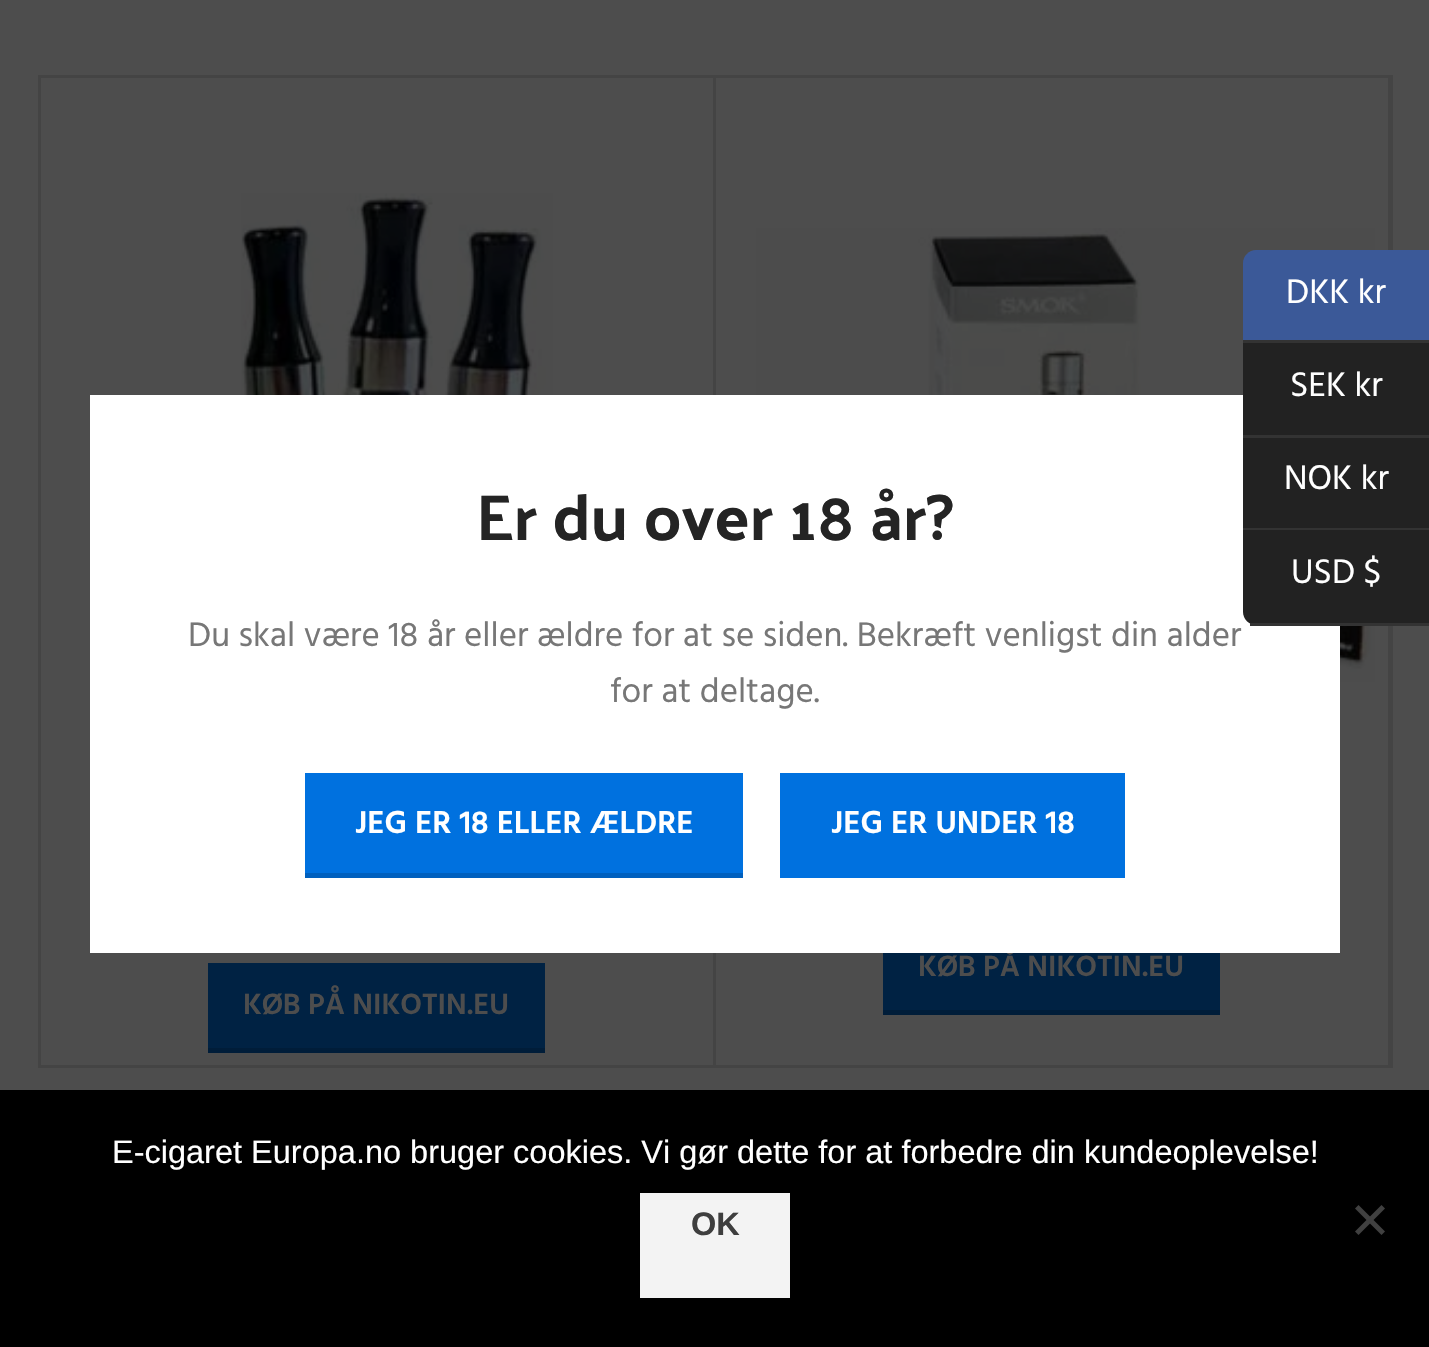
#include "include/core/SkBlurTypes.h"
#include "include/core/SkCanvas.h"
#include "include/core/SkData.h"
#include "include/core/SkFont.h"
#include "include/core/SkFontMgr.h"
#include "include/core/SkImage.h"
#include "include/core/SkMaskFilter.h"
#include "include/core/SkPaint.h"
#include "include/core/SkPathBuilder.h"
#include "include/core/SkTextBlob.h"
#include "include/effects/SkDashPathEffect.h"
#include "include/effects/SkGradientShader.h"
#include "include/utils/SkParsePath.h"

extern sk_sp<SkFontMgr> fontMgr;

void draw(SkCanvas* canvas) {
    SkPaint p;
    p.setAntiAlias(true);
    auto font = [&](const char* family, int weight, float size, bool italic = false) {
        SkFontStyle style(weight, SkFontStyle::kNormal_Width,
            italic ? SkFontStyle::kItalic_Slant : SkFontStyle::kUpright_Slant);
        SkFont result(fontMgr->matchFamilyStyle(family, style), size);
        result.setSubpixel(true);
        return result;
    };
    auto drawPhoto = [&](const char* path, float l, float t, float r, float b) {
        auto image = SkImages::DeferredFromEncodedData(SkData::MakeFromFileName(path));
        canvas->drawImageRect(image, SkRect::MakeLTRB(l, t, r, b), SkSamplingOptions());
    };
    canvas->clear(0xFF4D4D4D);
    p.setStyle(SkPaint::kStroke_Style);
    p.setStrokeWidth(3);
    p.setColor(0xFF444444);
    canvas->drawRect(SkRect::MakeLTRB(39.5f, 76.5f, 1391.5f, 1066.5f), p);
    p.setStyle(SkPaint::kFill_Style);
    canvas->drawRect(SkRect::MakeLTRB(1388, 78, 1390, 1065), p);
    drawPhoto("media/1.png", 756, 228, 1375, 682);
    p.setColor(0xFF3B5998);
    canvas->drawPath(SkPathBuilder().moveTo(1256, 250).lineTo(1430, 250).lineTo(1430, 343).lineTo(1243, 343).lineTo(1243, 263).cubicTo(1243, 256, 1249, 250, 1256, 250).close().detach(), p);
    p.setColor(0xFF333333);
    canvas->drawRect(SkRect::MakeLTRB(1243, 340, 1429, 343), p);
    auto font1 = font("Hind", 400, 35);
    p.setColor(0xFFFFFFFF);
    canvas->drawString("DKK kr", 1286, 303, font1, p);
    p.setColor(0xFF002243);
    canvas->drawRect(SkRect::MakeLTRB(883, 953, 1220, 1010), p);
    auto font2 = font("Hind", 600, 30);
    p.setColor(0xFF4D4D4D);
    canvas->drawString("KØB PÅ NIKOTIN.EU", 918, 976, font2, p);
    {
        const struct { float l, t, r, b; SkColor color; } items[] = {
            {713, 78, 716, 1065, 0xFF444444},
            {90, 395, 1340, 953, 0xFFFFFFFF},
            {1243, 343, 1429, 435, 0xFF222222},
            {1243, 435, 1429, 438, 0xFF333333},
        };
        for (auto [l, t, r, b, color] : items) {
            p.setColor(color);
            canvas->drawRect(SkRect::MakeLTRB(l, t, r, b), p);
        }
    }
    p.setColor(0xFFFFFFFF);
    canvas->drawString("SEK kr", 1290, 396, font1, p);
    p.setColor(0xFF222222);
    canvas->drawRect(SkRect::MakeLTRB(1243, 438, 1429, 528), p);
    p.setColor(0xFF333333);
    canvas->drawRect(SkRect::MakeLTRB(1243, 528, 1429, 530), p);
    p.setColor(0xFFFFFFFF);
    canvas->drawString("NOK kr", 1284, 489, font1, p);
    p.setColor(0xFF222222);
    canvas->drawPath(SkPathBuilder().moveTo(1243, 530).lineTo(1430, 530).lineTo(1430, 625).lineTo(1256, 625).cubicTo(1249, 625, 1243, 619, 1243, 612).close().detach(), p);
    p.setColor(0xFF333333);
    canvas->drawRect(SkRect::MakeLTRB(1250, 623, 1429, 626), p);
    p.setColor(0xFFFFFFFF);
    canvas->drawString("USD $", 1291, 583, font1, p);
    p.setColor(0xFF000000);
    canvas->drawRect(SkRect::MakeLTRB(0, 1090, 1429, 1347), p);
    auto font3 = font("Liberation Sans", 400, 32.5f);
    p.setColor(0xFFFFFFFF);
    canvas->drawString("E-cigaret Europa.no bruger cookies. Vi gør dette for at forbedre din kundeoplevelse!", 112, 1163, font3, p);
    p.setColor(0xFFF3F3F3);
    canvas->drawRect(SkRect::MakeLTRB(640, 1193, 790, 1298), p);
    auto font4 = font("Liberation Sans", 700, 32.5f);
    p.setColor(0xFF3E3E3E);
    canvas->drawString("OK", 691, 1235, font4, p);
    p.setColor(0xFF404040);
    canvas->drawPath(SkPathBuilder().moveTo(1381.5f, 1205).lineTo(1385, 1208.5f).lineTo(1358.5f, 1235).lineTo(1355, 1231.5f).close().detach(), p);
    canvas->drawPath(SkPathBuilder().moveTo(1355, 1208.5f).lineTo(1358.5f, 1205).lineTo(1385, 1231.5f).lineTo(1381.5f, 1235).close().detach(), p);
    auto font5 = font("Palanquin Dark", 400, 65);
    p.setColor(0xFF242424);
    canvas->drawString("Er du over 18 år?", 476, 540, font5, p);
    p.setColor(0xFF777777);
    canvas->drawString("Du skal være 18 år eller ældre for at se siden. Bekræft venligst din alder", 188, 646, font1, p);
    canvas->drawString("for at deltage.", 610, 702, font1, p);
    p.setColor(0xFF0071DF);
    canvas->drawRect(SkRect::MakeLTRB(305, 773, 743, 873), p);
    p.setColor(0xFF0060BE);
    canvas->drawRect(SkRect::MakeLTRB(305, 873, 743, 878), p);
    auto font6 = font("Hind", 600, 32.5f);
    p.setColor(0xFFFFFFFF);
    canvas->drawString("JEG ER 18 ELLER ÆLDRE", 355, 833, font6, p);
    p.setColor(0xFF0071DF);
    canvas->drawRect(SkRect::MakeLTRB(780, 773, 1125, 878), p);
    p.setColor(0xFFFFFFFF);
    canvas->drawString("JEG ER UNDER 18", 831, 833, font6, p);
    p.setColor(0xFF001D39);
    canvas->drawRect(SkRect::MakeLTRB(883, 1010, 1220, 1015), p);
    drawPhoto("media/2.png", 241, 193, 553, 395);
    p.setColor(0xFF002243);
    canvas->drawRect(SkRect::MakeLTRB(208, 963, 545, 1048), p);
    p.setColor(0xFF001D39);
    canvas->drawRect(SkRect::MakeLTRB(208, 1048, 545, 1053), p);
    p.setColor(0xFF4D4D4D);
    canvas->drawString("KØB PÅ NIKOTIN.EU", 243, 1014, font2, p);
}
